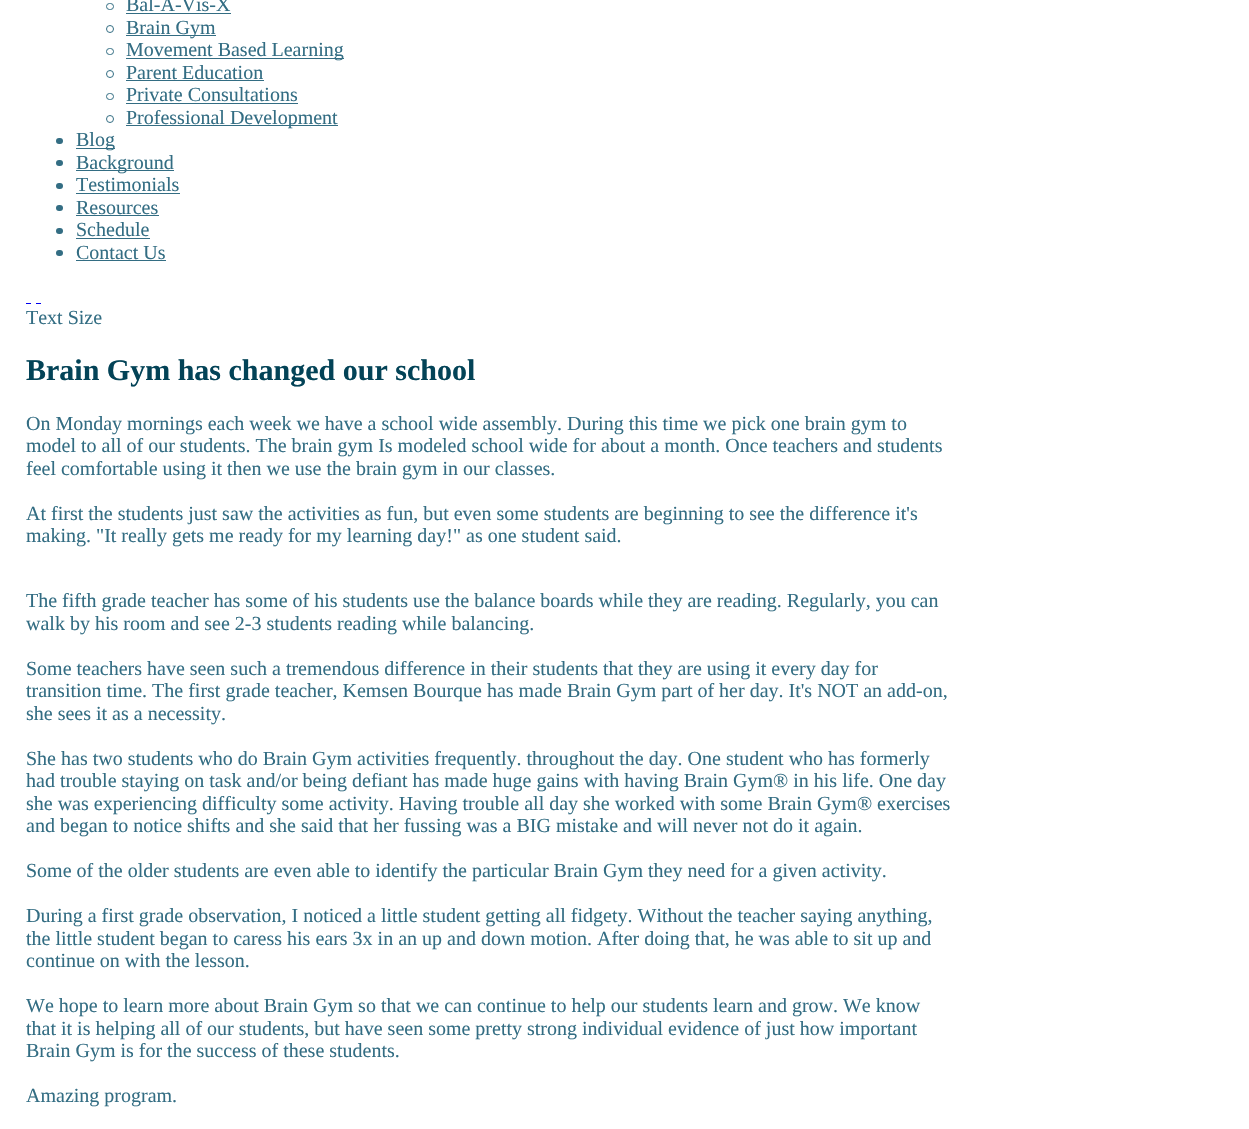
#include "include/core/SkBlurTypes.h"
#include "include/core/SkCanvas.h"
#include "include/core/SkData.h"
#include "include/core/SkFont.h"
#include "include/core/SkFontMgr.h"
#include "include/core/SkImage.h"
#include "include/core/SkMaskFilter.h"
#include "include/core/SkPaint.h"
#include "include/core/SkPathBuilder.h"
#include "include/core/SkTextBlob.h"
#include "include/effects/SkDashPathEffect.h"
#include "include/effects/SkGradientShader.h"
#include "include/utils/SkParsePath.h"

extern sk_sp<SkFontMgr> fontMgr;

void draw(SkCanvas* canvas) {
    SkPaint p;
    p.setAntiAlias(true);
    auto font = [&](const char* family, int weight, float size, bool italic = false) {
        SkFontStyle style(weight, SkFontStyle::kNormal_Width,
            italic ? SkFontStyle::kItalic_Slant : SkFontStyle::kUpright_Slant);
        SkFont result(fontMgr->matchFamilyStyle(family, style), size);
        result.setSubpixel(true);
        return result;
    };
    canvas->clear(0xFFFFFFFF);
    p.setStyle(SkPaint::kStroke_Style);
    p.setStrokeWidth(1);
    p.setColor(0xFF336D83);
    canvas->drawRoundRect(SkRect::MakeLTRB(106.5f, 3.5f, 113.5f, 9.5f), 3, 3, p);
    auto font1 = font("Liberation Serif", 400, 20);
    p.setStyle(SkPaint::kFill_Style);
    canvas->drawString("Bal-A-Vis-X", 126, 11, font1, p);
    canvas->drawRect(SkRect::MakeLTRB(126, 13, 231, 14), p);
    p.setStyle(SkPaint::kStroke_Style);
    canvas->drawCircle(110, 29, 3.5f, p);
    p.setStyle(SkPaint::kFill_Style);
    canvas->drawRect(SkRect::MakeLTRB(126, 35, 216, 36), p);
    canvas->drawString("Brain Gym", 126, 34, font1, p);
    p.setStyle(SkPaint::kStroke_Style);
    canvas->drawRoundRect(SkRect::MakeLTRB(106.5f, 48.5f, 113.5f, 54.5f), 3, 3, p);
    p.setStyle(SkPaint::kFill_Style);
    canvas->drawRect(SkRect::MakeLTRB(126, 58, 344, 59), p);
    canvas->drawString("Movement Based Learning", 126, 56, font1, p);
    p.setStyle(SkPaint::kStroke_Style);
    canvas->drawCircle(110, 74, 3.5f, p);
    p.setStyle(SkPaint::kFill_Style);
    canvas->drawString("Parent Education", 126, 79, font1, p);
    canvas->drawRect(SkRect::MakeLTRB(126, 80, 264, 81), p);
    p.setStyle(SkPaint::kStroke_Style);
    canvas->drawRoundRect(SkRect::MakeLTRB(106.5f, 93.5f, 113.5f, 99.5f), 3, 3, p);
    p.setStyle(SkPaint::kFill_Style);
    canvas->drawString("Private Consultations", 126, 101, font1, p);
    canvas->drawRect(SkRect::MakeLTRB(126, 103, 298, 104), p);
    p.setStyle(SkPaint::kStroke_Style);
    canvas->drawCircle(110, 119, 3.5f, p);
    p.setStyle(SkPaint::kFill_Style);
    canvas->drawRect(SkRect::MakeLTRB(126, 125, 338, 126), p);
    canvas->drawString("Professional Development", 126, 124, font1, p);
    canvas->drawRoundRect(SkRect::MakeLTRB(56, 138, 63, 144), 3, 3, p);
    canvas->drawRect(SkRect::MakeLTRB(76, 148, 115, 149), p);
    canvas->drawString("Blog", 76, 146, font1, p);
    canvas->drawRoundRect(SkRect::MakeLTRB(56, 160, 63, 166), 3, 3, p);
    canvas->drawRect(SkRect::MakeLTRB(76, 170, 174, 171), p);
    canvas->drawString("Background", 76, 169, font1, p);
    canvas->drawRoundRect(SkRect::MakeLTRB(56, 183, 63, 189), 3, 3, p);
    canvas->drawString("Testimonials", 76, 191, font1, p);
    canvas->drawRect(SkRect::MakeLTRB(76, 193, 180, 194), p);
    canvas->drawRoundRect(SkRect::MakeLTRB(56, 205, 63, 211), 3, 3, p);
    canvas->drawString("Resources", 76, 214, font1, p);
    canvas->drawRect(SkRect::MakeLTRB(76, 215, 159, 216), p);
    canvas->drawRoundRect(SkRect::MakeLTRB(56, 228, 63, 234), 3, 3, p);
    canvas->drawString("Schedule", 76, 236, font1, p);
    canvas->drawRect(SkRect::MakeLTRB(76, 238, 150, 239), p);
    canvas->drawRoundRect(SkRect::MakeLTRB(56, 250, 63, 256), 3, 3, p);
    canvas->drawString("Contact Us", 76, 259, font1, p);
    {
        const struct { float l, t, r, b; SkColor color; } items[] = {
            {76, 260, 166, 261, 0xFF336D83},
            {26, 303, 31, 304, 0xFF0000EE},
            {36, 303, 41, 304, 0xFF0000EE},
        };
        for (auto [l, t, r, b, color] : items) {
            p.setColor(color);
            canvas->drawRect(SkRect::MakeLTRB(l, t, r, b), p);
        }
    }
    p.setColor(0xFF336D83);
    canvas->drawString("Text Size", 26, 324, font1, p);
    auto font2 = font("Liberation Serif", 700, 30);
    p.setColor(0xFF034357);
    canvas->drawString("Brain Gym has changed our school", 26, 380, font2, p);
    p.setColor(0xFF336D83);
    {
        const struct { const char* s; float x, y; } items[] = {
            {"On Monday mornings each week we have a school wide assembly. During this time we pick one brain gym to", 26, 430},
            {"model to all of our students. The brain gym Is modeled school wide for about a month. Once teachers and students", 26, 452},
            {"feel comfortable using it then we use the brain gym in our classes.", 26, 475},
            {"At first the students just saw the activities as fun, but even some students are beginning to see the difference it's", 26, 520},
            {"making. \"It really gets me ready for my learning day!\" as one student said.", 26, 542},
            {"The fifth grade teacher has some of his students use the balance boards while they are reading. Regularly, you can", 26, 607},
            {"walk by his room and see 2-3 students reading while balancing.", 26, 630},
            {"Some teachers have seen such a tremendous difference in their students that they are using it every day for", 26, 675},
            {"transition time. The first grade teacher, Kemsen Bourque has made Brain Gym part of her day. It's NOT an add-on,", 26, 697},
            {"she sees it as a necessity.", 26, 720},
            {"She has two students who do Brain Gym activities frequently. throughout the day. One student who has formerly", 26, 765},
            {"had trouble staying on task and/or being defiant has made huge gains with having Brain Gym® in his life. One day", 26, 787},
            {"she was experiencing difficulty some activity. Having trouble all day she worked with some Brain Gym® exercises", 26, 810},
            {"and began to notice shifts and she said that her fussing was a BIG mistake and will never not do it again.", 26, 832},
            {"Some of the older students are even able to identify the particular Brain Gym they need for a given activity.", 26, 877},
            {"During a first grade observation, I noticed a little student getting all fidgety. Without the teacher saying anything,", 26, 922},
            {"the little student began to caress his ears 3x in an up and down motion. After doing that, he was able to sit up and", 26, 945},
            {"continue on with the lesson.", 26, 967},
            {"We hope to learn more about Brain Gym so that we can continue to help our students learn and grow. We know", 26, 1012},
            {"that it is helping all of our students, but have seen some pretty strong individual evidence of just how important", 26, 1035},
            {"Brain Gym is for the success of these students.", 26, 1057},
            {"Amazing program.", 26, 1102},
        };
        for (auto [s, x, y] : items) {
            canvas->drawString(s, x, y, font1, p);
        }
    }
}
